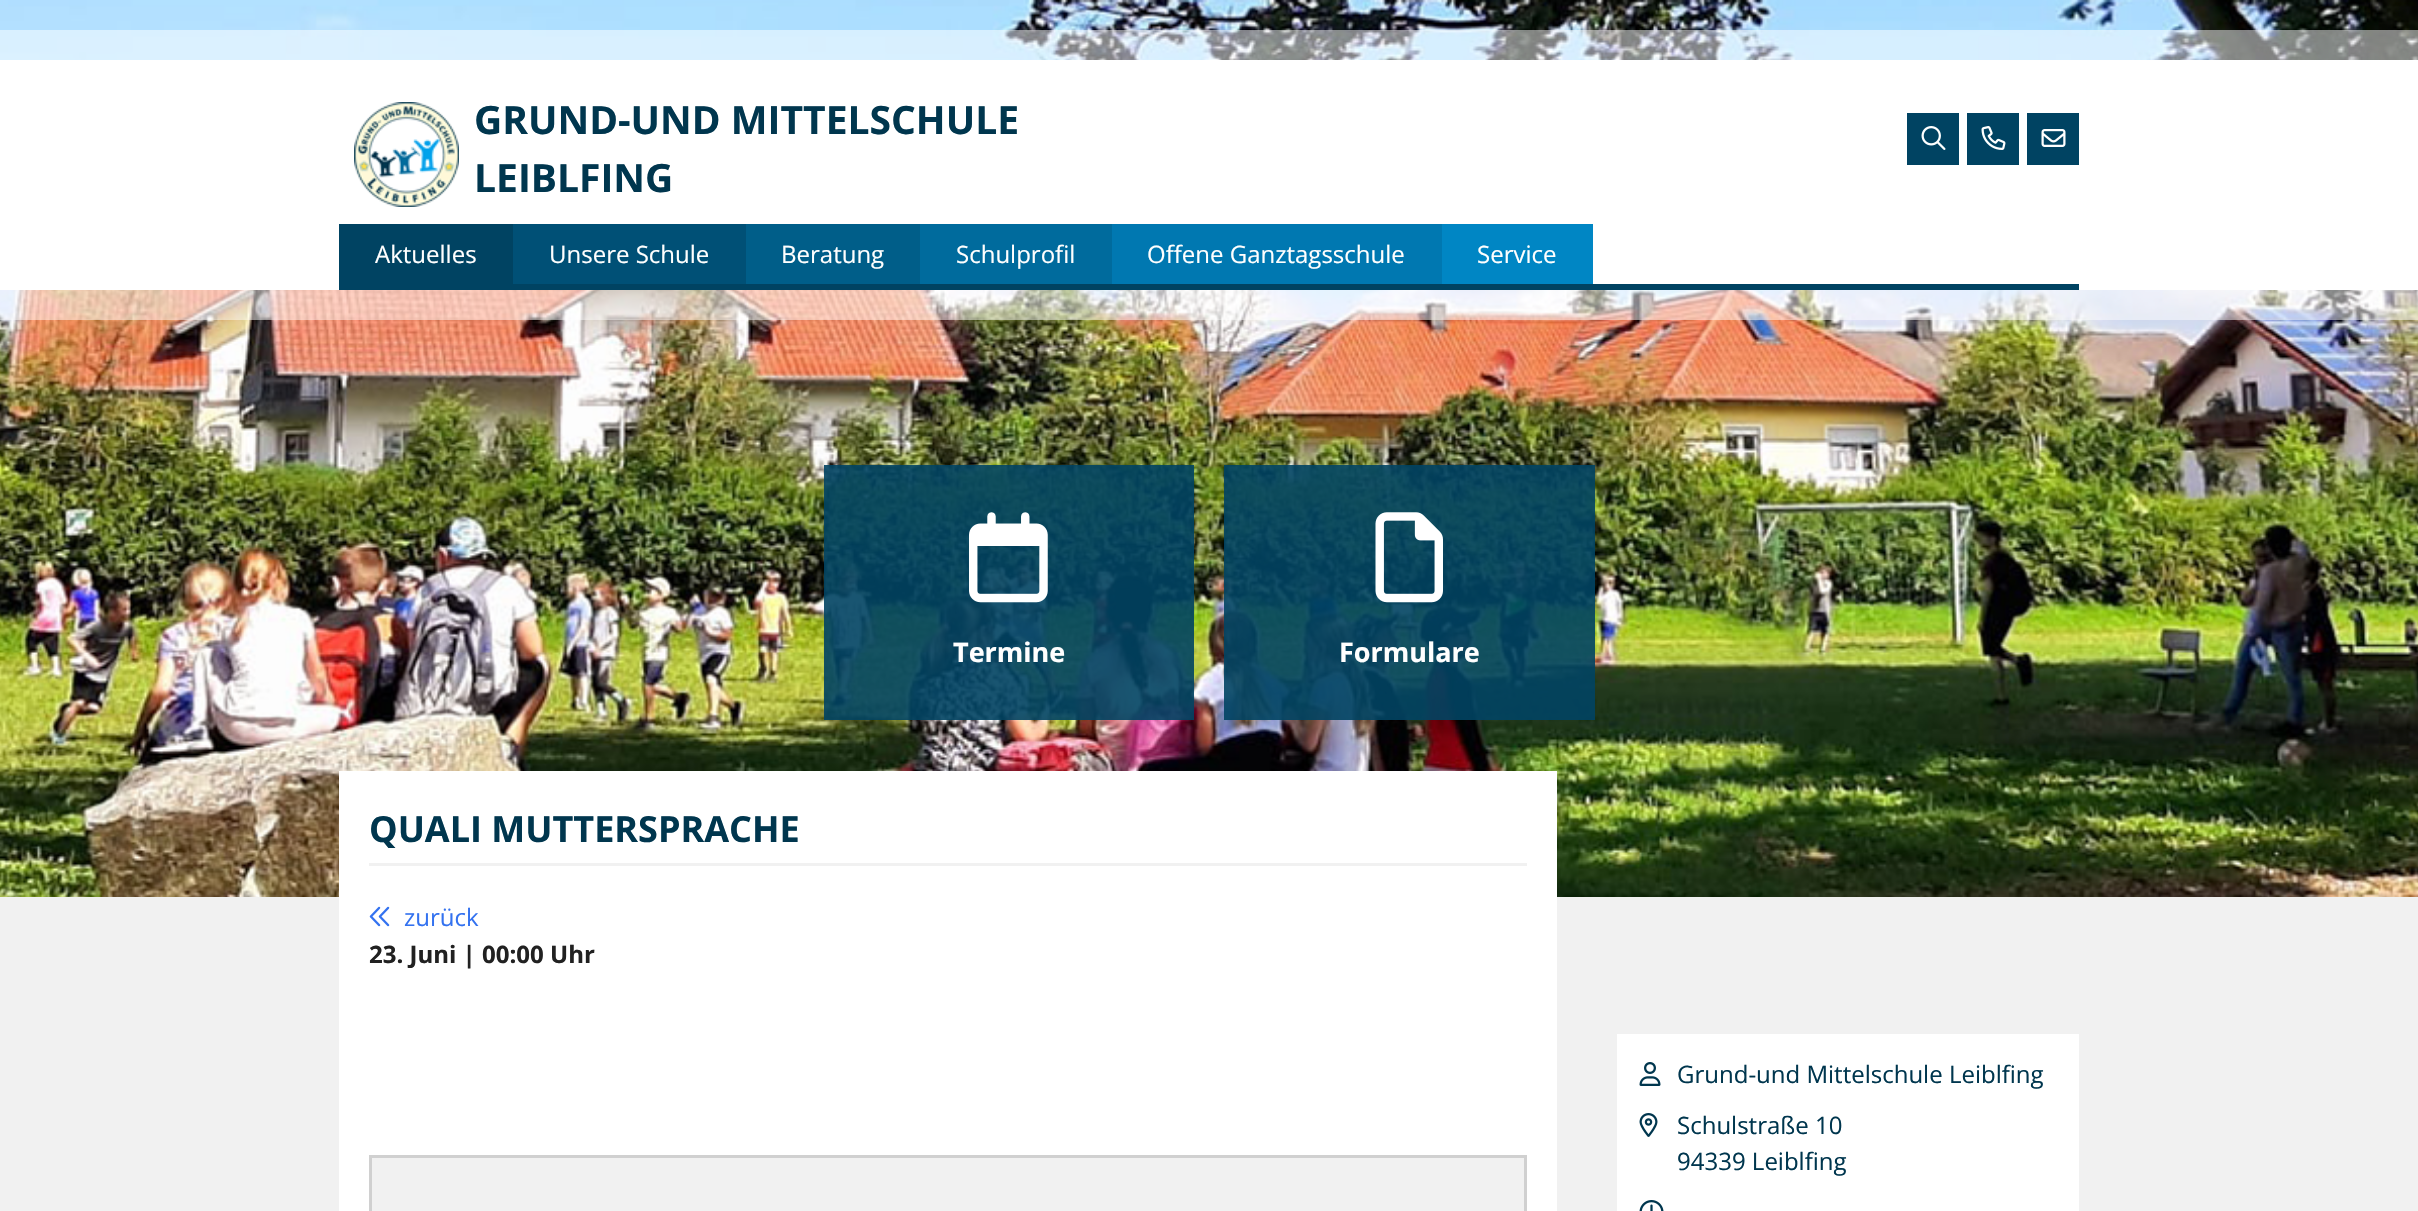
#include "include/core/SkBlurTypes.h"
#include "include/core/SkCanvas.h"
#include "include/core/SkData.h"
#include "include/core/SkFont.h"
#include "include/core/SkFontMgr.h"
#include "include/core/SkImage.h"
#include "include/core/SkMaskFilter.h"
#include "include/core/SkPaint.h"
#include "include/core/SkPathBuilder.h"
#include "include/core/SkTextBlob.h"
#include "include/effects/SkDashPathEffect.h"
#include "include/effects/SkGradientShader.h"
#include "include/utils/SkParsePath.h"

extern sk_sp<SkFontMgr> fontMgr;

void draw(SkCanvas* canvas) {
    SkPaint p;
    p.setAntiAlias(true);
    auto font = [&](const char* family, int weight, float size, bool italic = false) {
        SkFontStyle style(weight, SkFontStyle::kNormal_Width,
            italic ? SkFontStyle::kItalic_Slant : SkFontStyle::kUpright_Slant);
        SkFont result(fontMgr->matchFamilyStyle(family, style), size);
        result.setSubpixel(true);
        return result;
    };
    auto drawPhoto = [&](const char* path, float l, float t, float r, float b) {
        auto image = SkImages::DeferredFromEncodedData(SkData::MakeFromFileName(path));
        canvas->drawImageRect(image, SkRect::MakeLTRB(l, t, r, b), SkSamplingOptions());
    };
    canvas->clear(0xFFF1F1F1);
    drawPhoto("media/1.png", 0, 0, 2418, 897);
    {
        const struct { float l, t, r, b; SkColor color; } items[] = {
            {0, 30, 2418, 60, 0x80FFFFFF},
            {0, 290, 2418, 320, 0x80FFFFFF},
            {0, 60, 2418, 290, 0xFFFFFFFF},
        };
        for (auto [l, t, r, b, color] : items) {
            p.setColor(color);
            canvas->drawRect(SkRect::MakeLTRB(l, t, r, b), p);
        }
    }
    drawPhoto("media/2.png", 354, 102, 459, 207);
    auto font1 = font("Open Sans", 700, 39);
    p.setColor(0xFF00364E);
    canvas->drawString("GRUND-UND MITTELSCHULE", 474, 134, font1, p);
    canvas->drawString("LEIBLFING", 474, 192, font1, p);
    p.setColor(0xFF004362);
    canvas->drawRect(SkRect::MakeLTRB(1907, 113, 1959, 165), p);
    drawPhoto("media/3.png", 1921, 126, 1946, 150);
    canvas->drawRect(SkRect::MakeLTRB(1967, 113, 2019, 165), p);
    drawPhoto("media/4.png", 1981, 126, 2006, 150);
    canvas->drawRect(SkRect::MakeLTRB(2027, 113, 2079, 165), p);
    drawPhoto("media/5.png", 2041, 129, 2066, 147);
    canvas->drawRect(SkRect::MakeLTRB(339, 284, 2079, 290), p);
    canvas->drawRect(SkRect::MakeLTRB(339, 224, 513, 284), p);
    auto font2 = font("Open Sans", 400, 24);
    p.setColor(0xFFFFFFFF);
    canvas->drawString("Aktuelles", 375, 263, font2, p);
    p.setColor(0xFF005076);
    canvas->drawRect(SkRect::MakeLTRB(513, 224, 746, 284), p);
    p.setColor(0xFFFFFFFF);
    canvas->drawString("Unsere Schule", 549, 263, font2, p);
    p.setColor(0xFF005E89);
    canvas->drawRect(SkRect::MakeLTRB(746, 224, 920, 284), p);
    p.setColor(0xFFFFFFFF);
    canvas->drawString("Beratung", 781, 263, font2, p);
    p.setColor(0xFF006B9D);
    canvas->drawRect(SkRect::MakeLTRB(920, 224, 1112, 284), p);
    p.setColor(0xFFFFFFFF);
    canvas->drawString("Schulprofil", 956, 263, font2, p);
    p.setColor(0xFF0078B1);
    canvas->drawRect(SkRect::MakeLTRB(1112, 224, 1442, 284), p);
    p.setColor(0xFFFFFFFF);
    canvas->drawString("Offene Ganztagsschule", 1147, 263, font2, p);
    p.setColor(0xFF0086C4);
    canvas->drawRect(SkRect::MakeLTRB(1442, 224, 1593, 284), p);
    p.setColor(0xFFFFFFFF);
    canvas->drawString("Service", 1477, 263, font2, p);
    p.setColor(0xE6004362);
    canvas->drawRect(SkRect::MakeLTRB(824, 465, 1194, 720), p);
    drawPhoto("media/6.png", 969, 512, 1048, 603);
    auto font3 = font("Open Sans", 700, 27);
    p.setColor(0xFFFFFFFF);
    canvas->drawString("Termine", 953, 662, font3, p);
    p.setColor(0xE6004362);
    canvas->drawRect(SkRect::MakeLTRB(1224, 465, 1595, 720), p);
    drawPhoto("media/7.png", 1375, 512, 1443, 603);
    p.setColor(0xFFFFFFFF);
    canvas->drawString("Formulare", 1339, 662, font3, p);
    canvas->drawRect(SkRect::MakeLTRB(339, 771, 1557, 1211), p);
    p.setColor(0xFFF1F1F1);
    canvas->drawRect(SkRect::MakeLTRB(369, 863, 1527, 866), p);
    auto font4 = font("Open Sans", 700, 36);
    p.setColor(0xFF00364E);
    canvas->drawString("QUALI MUTTERSPRACHE", 369, 842, font4, p);
    drawPhoto("media/8.png", 369, 906, 390, 927);
    p.setColor(0xFF3372F0);
    canvas->drawString("zurück", 404, 926, font2, p);
    auto font5 = font("Open Sans", 700, 24);
    p.setColor(0xFF212121);
    canvas->drawString("23. Juni | 00:00 Uhr", 369, 963, font5, p);
    p.setColor(0xFFF1F1F1);
    canvas->drawRect(SkRect::MakeLTRB(370.5f, 1156.5f, 1525.5f, 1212.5f), p);
    p.setStyle(SkPaint::kStroke_Style);
    p.setStrokeWidth(3);
    p.setColor(0xFFD0D0D0);
    canvas->drawRect(SkRect::MakeLTRB(370.5f, 1156.5f, 1525.5f, 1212.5f), p);
    p.setStyle(SkPaint::kFill_Style);
    p.setColor(0xFFFFFFFF);
    canvas->drawRect(SkRect::MakeLTRB(1617, 1034, 2079, 1211), p);
    drawPhoto("media/9.png", 1639, 1062, 1661, 1086);
    p.setColor(0xFF00364E);
    canvas->drawString("Grund-und Mittelschule Leiblfing", 1677, 1083, font2, p);
    drawPhoto("media/10.png", 1639, 1113, 1658, 1137);
    canvas->drawString("Schulstraße 10", 1677, 1134, font2, p);
    canvas->drawString("94339 Leiblfing", 1677, 1170, font2, p);
    drawPhoto("media/11.png", 1639, 1200, 1664, 1211);
}
